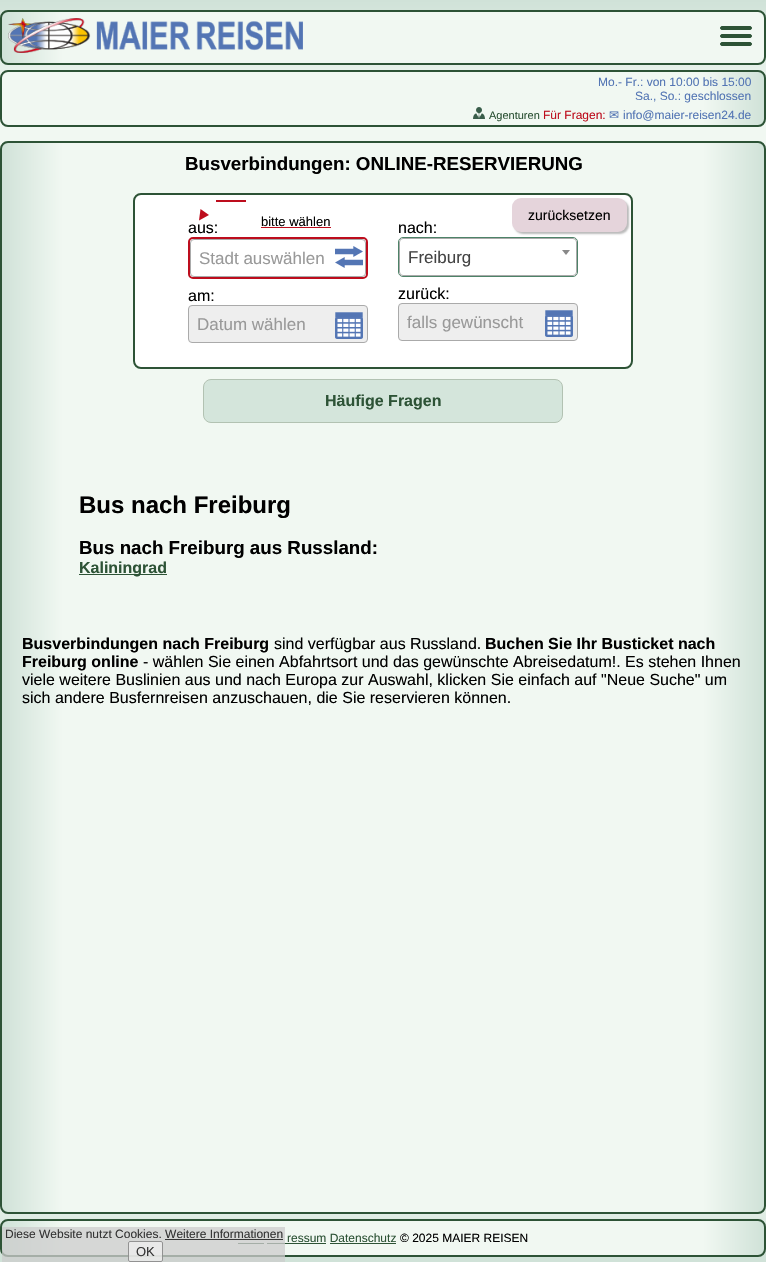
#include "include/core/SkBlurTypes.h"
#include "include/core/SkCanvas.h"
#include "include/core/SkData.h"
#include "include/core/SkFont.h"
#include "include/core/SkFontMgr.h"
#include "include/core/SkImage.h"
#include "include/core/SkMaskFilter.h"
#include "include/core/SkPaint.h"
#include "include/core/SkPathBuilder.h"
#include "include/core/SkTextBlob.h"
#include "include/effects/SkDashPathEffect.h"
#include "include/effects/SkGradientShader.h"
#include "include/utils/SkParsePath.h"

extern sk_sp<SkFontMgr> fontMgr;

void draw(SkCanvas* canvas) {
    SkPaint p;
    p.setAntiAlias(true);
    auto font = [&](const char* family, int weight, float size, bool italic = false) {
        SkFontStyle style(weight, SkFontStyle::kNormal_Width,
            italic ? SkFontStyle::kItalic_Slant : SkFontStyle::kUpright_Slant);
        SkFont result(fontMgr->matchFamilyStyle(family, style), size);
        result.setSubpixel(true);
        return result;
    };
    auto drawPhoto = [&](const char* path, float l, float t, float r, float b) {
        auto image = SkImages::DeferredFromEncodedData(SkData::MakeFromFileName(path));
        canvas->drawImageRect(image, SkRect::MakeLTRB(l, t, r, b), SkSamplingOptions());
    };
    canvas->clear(0xFFFFFFFF);
    {
        const SkColor colors[] = {0xFFD0E2D8, 0xFFF1F8F2, 0xFFF1F8F2, 0xFFD0E2D8};
        const float stops[] = {0, 0.08f, 0.92f, 1};
        const SkPoint ends[] = {{383, 0}, {383, 1262}};
        p.setShader(SkGradientShader::MakeLinear(ends, colors, stops, 4, SkTileMode::kClamp));
        p.setAlpha(255);
    }
    canvas->drawRect(SkRect::MakeLTRB(0, 0, 766, 1262), p);
    canvas->save();
    canvas->clipPath(SkPathBuilder().moveTo(8, 10).lineTo(758, 10).cubicTo(762.5f, 10, 766, 13.5f, 766, 18).lineTo(766, 57).cubicTo(766, 61.5f, 762.5f, 65, 758, 65).lineTo(8, 65).cubicTo(3.5f, 65, 0, 61.5f, 0, 57).lineTo(0, 18).cubicTo(0, 13.5f, 3.5f, 10, 8, 10).close().detach(), true);
    {
        const SkColor colors[] = {0xFFD0E2D8, 0xFFF1F8F2, 0xFFF1F8F2};
        const float stops[] = {0, 0.08f, 1};
        const SkPoint ends[] = {{2, 38}, {764, 37}};
        p.setShader(SkGradientShader::MakeLinear(ends, colors, stops, 3, SkTileMode::kClamp));
        p.setAlpha(255);
    }
    canvas->drawRect(SkRect::MakeLTRB(2, 10, 764, 65), p);
    canvas->restore();
    p.setStyle(SkPaint::kStroke_Style);
    p.setStrokeWidth(2);
    p.setShader(nullptr);
    p.setColor(0xFF2D5336);
    canvas->drawRoundRect(SkRect::MakeLTRB(1, 11, 765, 64), 7, 7, p);
    p.setStyle(SkPaint::kFill_Style);
    canvas->drawRoundRect(SkRect::MakeLTRB(720.5f, 26.5f, 751.5f, 29.5f), 1.5f, 1.5f, p);
    p.setStyle(SkPaint::kStroke_Style);
    p.setStrokeWidth(1);
    canvas->drawRoundRect(SkRect::MakeLTRB(720.5f, 26.5f, 751.5f, 29.5f), 1.5f, 1.5f, p);
    p.setStyle(SkPaint::kFill_Style);
    canvas->drawRoundRect(SkRect::MakeLTRB(720.5f, 34.5f, 751.5f, 37.5f), 1.5f, 1.5f, p);
    p.setStyle(SkPaint::kStroke_Style);
    canvas->drawRoundRect(SkRect::MakeLTRB(720.5f, 34.5f, 751.5f, 37.5f), 1.5f, 1.5f, p);
    p.setStyle(SkPaint::kFill_Style);
    canvas->drawRoundRect(SkRect::MakeLTRB(720.5f, 42.5f, 751.5f, 45.5f), 1.5f, 1.5f, p);
    p.setStyle(SkPaint::kStroke_Style);
    canvas->drawRoundRect(SkRect::MakeLTRB(720.5f, 42.5f, 751.5f, 45.5f), 1.5f, 1.5f, p);
    drawPhoto("media/1.png", 8, 18, 303, 53);
    canvas->save();
    canvas->clipPath(SkPathBuilder().moveTo(8, 70).lineTo(758, 70).cubicTo(762.5f, 70, 766, 73.5f, 766, 78).lineTo(766, 119).cubicTo(766, 123.5f, 762.5f, 127, 758, 127).lineTo(8, 127).cubicTo(3.5f, 127, 0, 123.5f, 0, 119).lineTo(0, 78).cubicTo(0, 73.5f, 3.5f, 70, 8, 70).close().detach(), true);
    p.setStyle(SkPaint::kFill_Style);
    {
        const SkColor colors[] = {0xFFF1F8F2, 0xFFF1F8F2, 0xFFD0E2D8};
        const float stops[] = {0, 0.92f, 1};
        const SkPoint ends[] = {{2, 99}, {764, 98}};
        p.setShader(SkGradientShader::MakeLinear(ends, colors, stops, 3, SkTileMode::kClamp));
        p.setAlpha(255);
    }
    canvas->drawRect(SkRect::MakeLTRB(2, 70, 764, 127), p);
    canvas->restore();
    p.setStyle(SkPaint::kStroke_Style);
    p.setStrokeWidth(2);
    p.setShader(nullptr);
    p.setColor(0xFF2D5336);
    canvas->drawRoundRect(SkRect::MakeLTRB(1, 71, 765, 126), 7, 7, p);
    auto font1 = font("Liberation Sans", 400, 12);
    p.setStyle(SkPaint::kFill_Style);
    p.setColor(0xFF5375B4);
    canvas->drawString("Mo.- Fr.: von 10:00 bis 15:00", 598, 86, font1, p);
    canvas->drawString("Sa., So.: geschlossen", 635, 100, font1, p);
    drawPhoto("media/2.png", 473, 107, 485, 119);
    auto font2 = font("Liberation Sans", 400, 11);
    p.setColor(0xFF2D5336);
    canvas->drawString("Agenturen", 489, 119, font2, p);
    p.setColor(0xFFBD0D1D);
    canvas->drawString("Für Fragen:", 543, 119, font1, p);
    auto font3 = font("DejaVu Sans", 400, 12);
    p.setColor(0xFF5375B4);
    canvas->drawString("✉", 609, 119, font3, p);
    canvas->drawString("info@maier-reisen24.de", 623, 119, font1, p);
    canvas->save();
    canvas->clipPath(SkPathBuilder().moveTo(8, 141).lineTo(758, 141).cubicTo(762.5f, 141, 766, 144.5f, 766, 149).lineTo(766, 1206).cubicTo(766, 1210.5f, 762.5f, 1214, 758, 1214).lineTo(8, 1214).cubicTo(3.5f, 1214, 0, 1210.5f, 0, 1206).lineTo(0, 149).cubicTo(0, 144.5f, 3.5f, 141, 8, 141).close().detach(), true);
    {
        const SkColor colors[] = {0xFFD0E2D8, 0xFFF1F8F2, 0xFFF1F8F2, 0xFFD0E2D8};
        const float stops[] = {0, 0.08f, 0.92f, 1};
        const SkPoint ends[] = {{2, 678}, {764, 678}};
        p.setShader(SkGradientShader::MakeLinear(ends, colors, stops, 4, SkTileMode::kClamp));
        p.setAlpha(255);
    }
    canvas->drawRect(SkRect::MakeLTRB(2, 141, 764, 1214), p);
    canvas->restore();
    p.setStyle(SkPaint::kStroke_Style);
    p.setShader(nullptr);
    p.setColor(0xFF2D5336);
    canvas->drawRoundRect(SkRect::MakeLTRB(1, 142, 765, 1213), 7, 7, p);
    auto font4 = font("Liberation Sans", 700, 18.75f);
    p.setStyle(SkPaint::kFill_Style);
    p.setColor(0xFF000000);
    canvas->drawString("Busverbindungen: ONLINE-RESERVIERUNG", 185, 170, font4, p);
    p.setColor(0xFFFFFFFF);
    canvas->drawRoundRect(SkRect::MakeLTRB(134, 194, 632, 368), 7, 7, p);
    p.setStyle(SkPaint::kStroke_Style);
    p.setColor(0xFF2D5336);
    canvas->drawRoundRect(SkRect::MakeLTRB(134, 194, 632, 368), 7, 7, p);
    p.setStyle(SkPaint::kFill_Style);
    p.setColor(0xFFBD0D1D);
    canvas->drawRect(SkRect::MakeLTRB(216, 200, 246, 202), p);
    canvas->drawPath(SkPathBuilder().moveTo(200.5f, 209).lineTo(209, 215).lineTo(199, 220.5f).close().detach(), p);
    auto font5 = font("Liberation Sans", 400, 13);
    p.setColor(0xFF000000);
    canvas->drawString("bitte wählen", 261, 226, font5, p);
    p.setColor(0xFFBD0D1D);
    canvas->drawRect(SkRect::MakeLTRB(261, 227, 331, 228), p);
    auto font6 = font("Liberation Sans", 400, 16);
    p.setColor(0xFF000000);
    canvas->drawString("aus:", 188, 233, font6, p);
    p.setStyle(SkPaint::kStroke_Style);
    p.setColor(0xFFBD0D1D);
    canvas->drawRoundRect(SkRect::MakeLTRB(189, 238, 367, 278), 4, 4, p);
    p.setStyle(SkPaint::kFill_Style);
    p.setColor(0xFFFFFFFF);
    canvas->drawRoundRect(SkRect::MakeLTRB(190.5f, 239.5f, 365.5f, 276.5f), 3.5f, 3.5f, p);
    p.setStyle(SkPaint::kStroke_Style);
    p.setStrokeWidth(1);
    p.setColor(0xFFAAAAAA);
    canvas->drawRoundRect(SkRect::MakeLTRB(190.5f, 239.5f, 365.5f, 276.5f), 3.5f, 3.5f, p);
    auto font7 = font("Liberation Sans", 400, 17);
    p.setStyle(SkPaint::kFill_Style);
    p.setColor(0xFF999999);
    canvas->drawString("Stadt auswählen", 199, 264, font7, p);
    drawPhoto("media/3.png", 335, 246, 363, 268);
    p.setColor(0xFF000000);
    canvas->drawString("am:", 188, 301, font6, p);
    p.setColor(0xFFEEEEEE);
    canvas->drawRoundRect(SkRect::MakeLTRB(188.5f, 305.5f, 367.5f, 342.5f), 3.5f, 3.5f, p);
    p.setStyle(SkPaint::kStroke_Style);
    p.setColor(0xFFAAAAAA);
    canvas->drawRoundRect(SkRect::MakeLTRB(188.5f, 305.5f, 367.5f, 342.5f), 3.5f, 3.5f, p);
    p.setStyle(SkPaint::kFill_Style);
    p.setColor(0xFF999999);
    canvas->drawString("Datum wählen", 197, 330, font7, p);
    drawPhoto("media/4.png", 335, 312, 363, 339);
    p.setStyle(SkPaint::kStroke_Style);
    p.setColor(0xFF4D8368);
    canvas->drawRoundRect(SkRect::MakeLTRB(398.5f, 237.5f, 577.5f, 276.5f), 4.5f, 4.5f, p);
    p.setStyle(SkPaint::kFill_Style);
    p.setColor(0xFFBBBBBB);
    p.setMaskFilter(SkMaskFilter::MakeBlur(kNormal_SkBlurStyle, 1));
    canvas->drawRoundRect(SkRect::MakeLTRB(514, 200, 629, 234), 9, 9, p);
    p.setMaskFilter(nullptr);
    p.setColor(0xFFE5D4DB);
    canvas->drawRoundRect(SkRect::MakeLTRB(512, 198, 627, 232), 9, 9, p);
    auto font8 = font("Liberation Sans", 400, 14);
    p.setColor(0xFF000000);
    canvas->drawString("zurücksetzen", 528, 220, font8, p);
    canvas->drawString("nach:", 398, 233, font6, p);
    p.setColor(0xFFFFFFFF);
    canvas->drawRoundRect(SkRect::MakeLTRB(399.5f, 238.5f, 576.5f, 275.5f), 3.5f, 3.5f, p);
    p.setStyle(SkPaint::kStroke_Style);
    p.setColor(0xFFAAAAAA);
    canvas->drawRoundRect(SkRect::MakeLTRB(399.5f, 238.5f, 576.5f, 275.5f), 3.5f, 3.5f, p);
    p.setStyle(SkPaint::kFill_Style);
    p.setColor(0xFF444444);
    canvas->drawString("Freiburg", 408, 263, font7, p);
    p.setColor(0xFF888888);
    canvas->drawPath(SkPathBuilder().moveTo(562, 250).lineTo(570, 250).lineTo(566, 255).close().detach(), p);
    p.setColor(0xFF000000);
    canvas->drawString("zurück:", 398, 299, font6, p);
    p.setColor(0xFFEEEEEE);
    canvas->drawRoundRect(SkRect::MakeLTRB(398.5f, 303.5f, 577.5f, 340.5f), 3.5f, 3.5f, p);
    p.setStyle(SkPaint::kStroke_Style);
    p.setColor(0xFFAAAAAA);
    canvas->drawRoundRect(SkRect::MakeLTRB(398.5f, 303.5f, 577.5f, 340.5f), 3.5f, 3.5f, p);
    p.setStyle(SkPaint::kFill_Style);
    p.setColor(0xFF999999);
    canvas->drawString("falls gewünscht", 407, 328, font7, p);
    drawPhoto("media/4.png", 545, 310, 573, 337);
    p.setColor(0xFFD4E5DB);
    canvas->drawRoundRect(SkRect::MakeLTRB(203.5f, 379.5f, 562.5f, 422.5f), 7.5f, 7.5f, p);
    p.setStyle(SkPaint::kStroke_Style);
    p.setColor(0xFFB2C2B2);
    canvas->drawRoundRect(SkRect::MakeLTRB(203.5f, 379.5f, 562.5f, 422.5f), 7.5f, 7.5f, p);
    auto font9 = font("Liberation Sans", 700, 16);
    p.setStyle(SkPaint::kFill_Style);
    p.setColor(0xFF2D5336);
    canvas->drawString("Häufige Fragen", 325, 406, font9, p);
    auto font10 = font("Liberation Sans", 700, 24);
    p.setColor(0xFF000000);
    canvas->drawString("Bus nach Freiburg", 79, 513, font10, p);
    canvas->drawString("Bus nach Freiburg aus Russland:", 79, 554, font4, p);
    p.setColor(0xFF2D5336);
    canvas->drawRect(SkRect::MakeLTRB(79, 574, 167, 575), p);
    canvas->drawString("Kaliningrad", 79, 573, font9, p);
    p.setColor(0xFF000000);
    canvas->drawString("Busverbindungen nach Freiburg", 22, 649, font9, p);
    canvas->drawString("sind verfügbar aus Russland.", 274, 649, font6, p);
    canvas->drawString("Buchen Sie Ihr Busticket nach", 485, 649, font9, p);
    canvas->drawString("Freiburg online", 22, 667, font9, p);
    {
        const struct { const char* s; float x, y; } items[] = {
            {"- wählen Sie einen Abfahrtsort und das gewünschte Abreisedatum!. Es stehen Ihnen", 143, 667},
            {"viele weitere Buslinien aus und nach Europa zur Auswahl, klicken Sie einfach auf \"Neue Suche\" um", 22, 685},
            {"sich andere Busfernreisen anzuschauen, die Sie reservieren können.", 22, 703},
        };
        for (auto [s, x, y] : items) {
            canvas->drawString(s, x, y, font6, p);
        }
    }
    canvas->save();
    canvas->clipPath(SkPathBuilder().moveTo(8, 1219).lineTo(758, 1219).cubicTo(762.5f, 1219, 766, 1222.5f, 766, 1227).lineTo(766, 1249).cubicTo(766, 1253.5f, 762.5f, 1257, 758, 1257).lineTo(8, 1257).cubicTo(3.5f, 1257, 0, 1253.5f, 0, 1249).lineTo(0, 1227).cubicTo(0, 1222.5f, 3.5f, 1219, 8, 1219).close().detach(), true);
    {
        const SkColor colors[] = {0xFFD0E2D8, 0xFFF1F8F2, 0xFFF1F8F2, 0xFFD0E2D8};
        const float stops[] = {0, 0.08f, 0.92f, 1};
        const SkPoint ends[] = {{2, 1238}, {764, 1238}};
        p.setShader(SkGradientShader::MakeLinear(ends, colors, stops, 4, SkTileMode::kClamp));
        p.setAlpha(255);
    }
    canvas->drawRect(SkRect::MakeLTRB(2, 1219, 764, 1257), p);
    canvas->restore();
    p.setStyle(SkPaint::kStroke_Style);
    p.setStrokeWidth(2);
    p.setShader(nullptr);
    p.setColor(0xFF2D5336);
    canvas->drawRoundRect(SkRect::MakeLTRB(1, 1220, 765, 1256), 7, 7, p);
    p.setStyle(SkPaint::kFill_Style);
    {
        const struct { float l, t, r, b; SkColor color; } items[] = {
            {267, 1243, 326, 1244, 0xFF2D5336},
            {238, 1243, 264, 1244, 0xFF2D5336},
            {2, 1227, 285, 1262, 0xBFCCCCCC},
        };
        for (auto [l, t, r, b, color] : items) {
            p.setColor(color);
            canvas->drawRect(SkRect::MakeLTRB(l, t, r, b), p);
        }
    }
    p.setColor(0xFF353535);
    canvas->drawString("Diese Website nutzt Cookies. Weitere Informationen", 5, 1238, font1, p);
    p.setColor(0xBF000000);
    canvas->drawRect(SkRect::MakeLTRB(165, 1239, 283, 1240), p);
    p.setColor(0xBFEFEFEF);
    canvas->drawRoundRect(SkRect::MakeLTRB(128, 1241, 163, 1262), 2, 2, p);
    p.setStyle(SkPaint::kStroke_Style);
    p.setStrokeWidth(1);
    p.setColor(0xBF767676);
    canvas->drawRoundRect(SkRect::MakeLTRB(128.5f, 1241.5f, 162.5f, 1261.5f), 1.5f, 1.5f, p);
    p.setStyle(SkPaint::kFill_Style);
    p.setColor(0xFF353535);
    canvas->drawString("OK", 136, 1256, font5, p);
    p.setColor(0xFF2D5336);
    canvas->drawString("ressum Datenschutz", 287, 1242, font1, p);
    p.setColor(0xFF000000);
    canvas->drawString("© 2025 MAIER REISEN", 400, 1242, font1, p);
    p.setColor(0xFF2D5336);
    canvas->drawRect(SkRect::MakeLTRB(330, 1243, 396, 1244), p);
}
